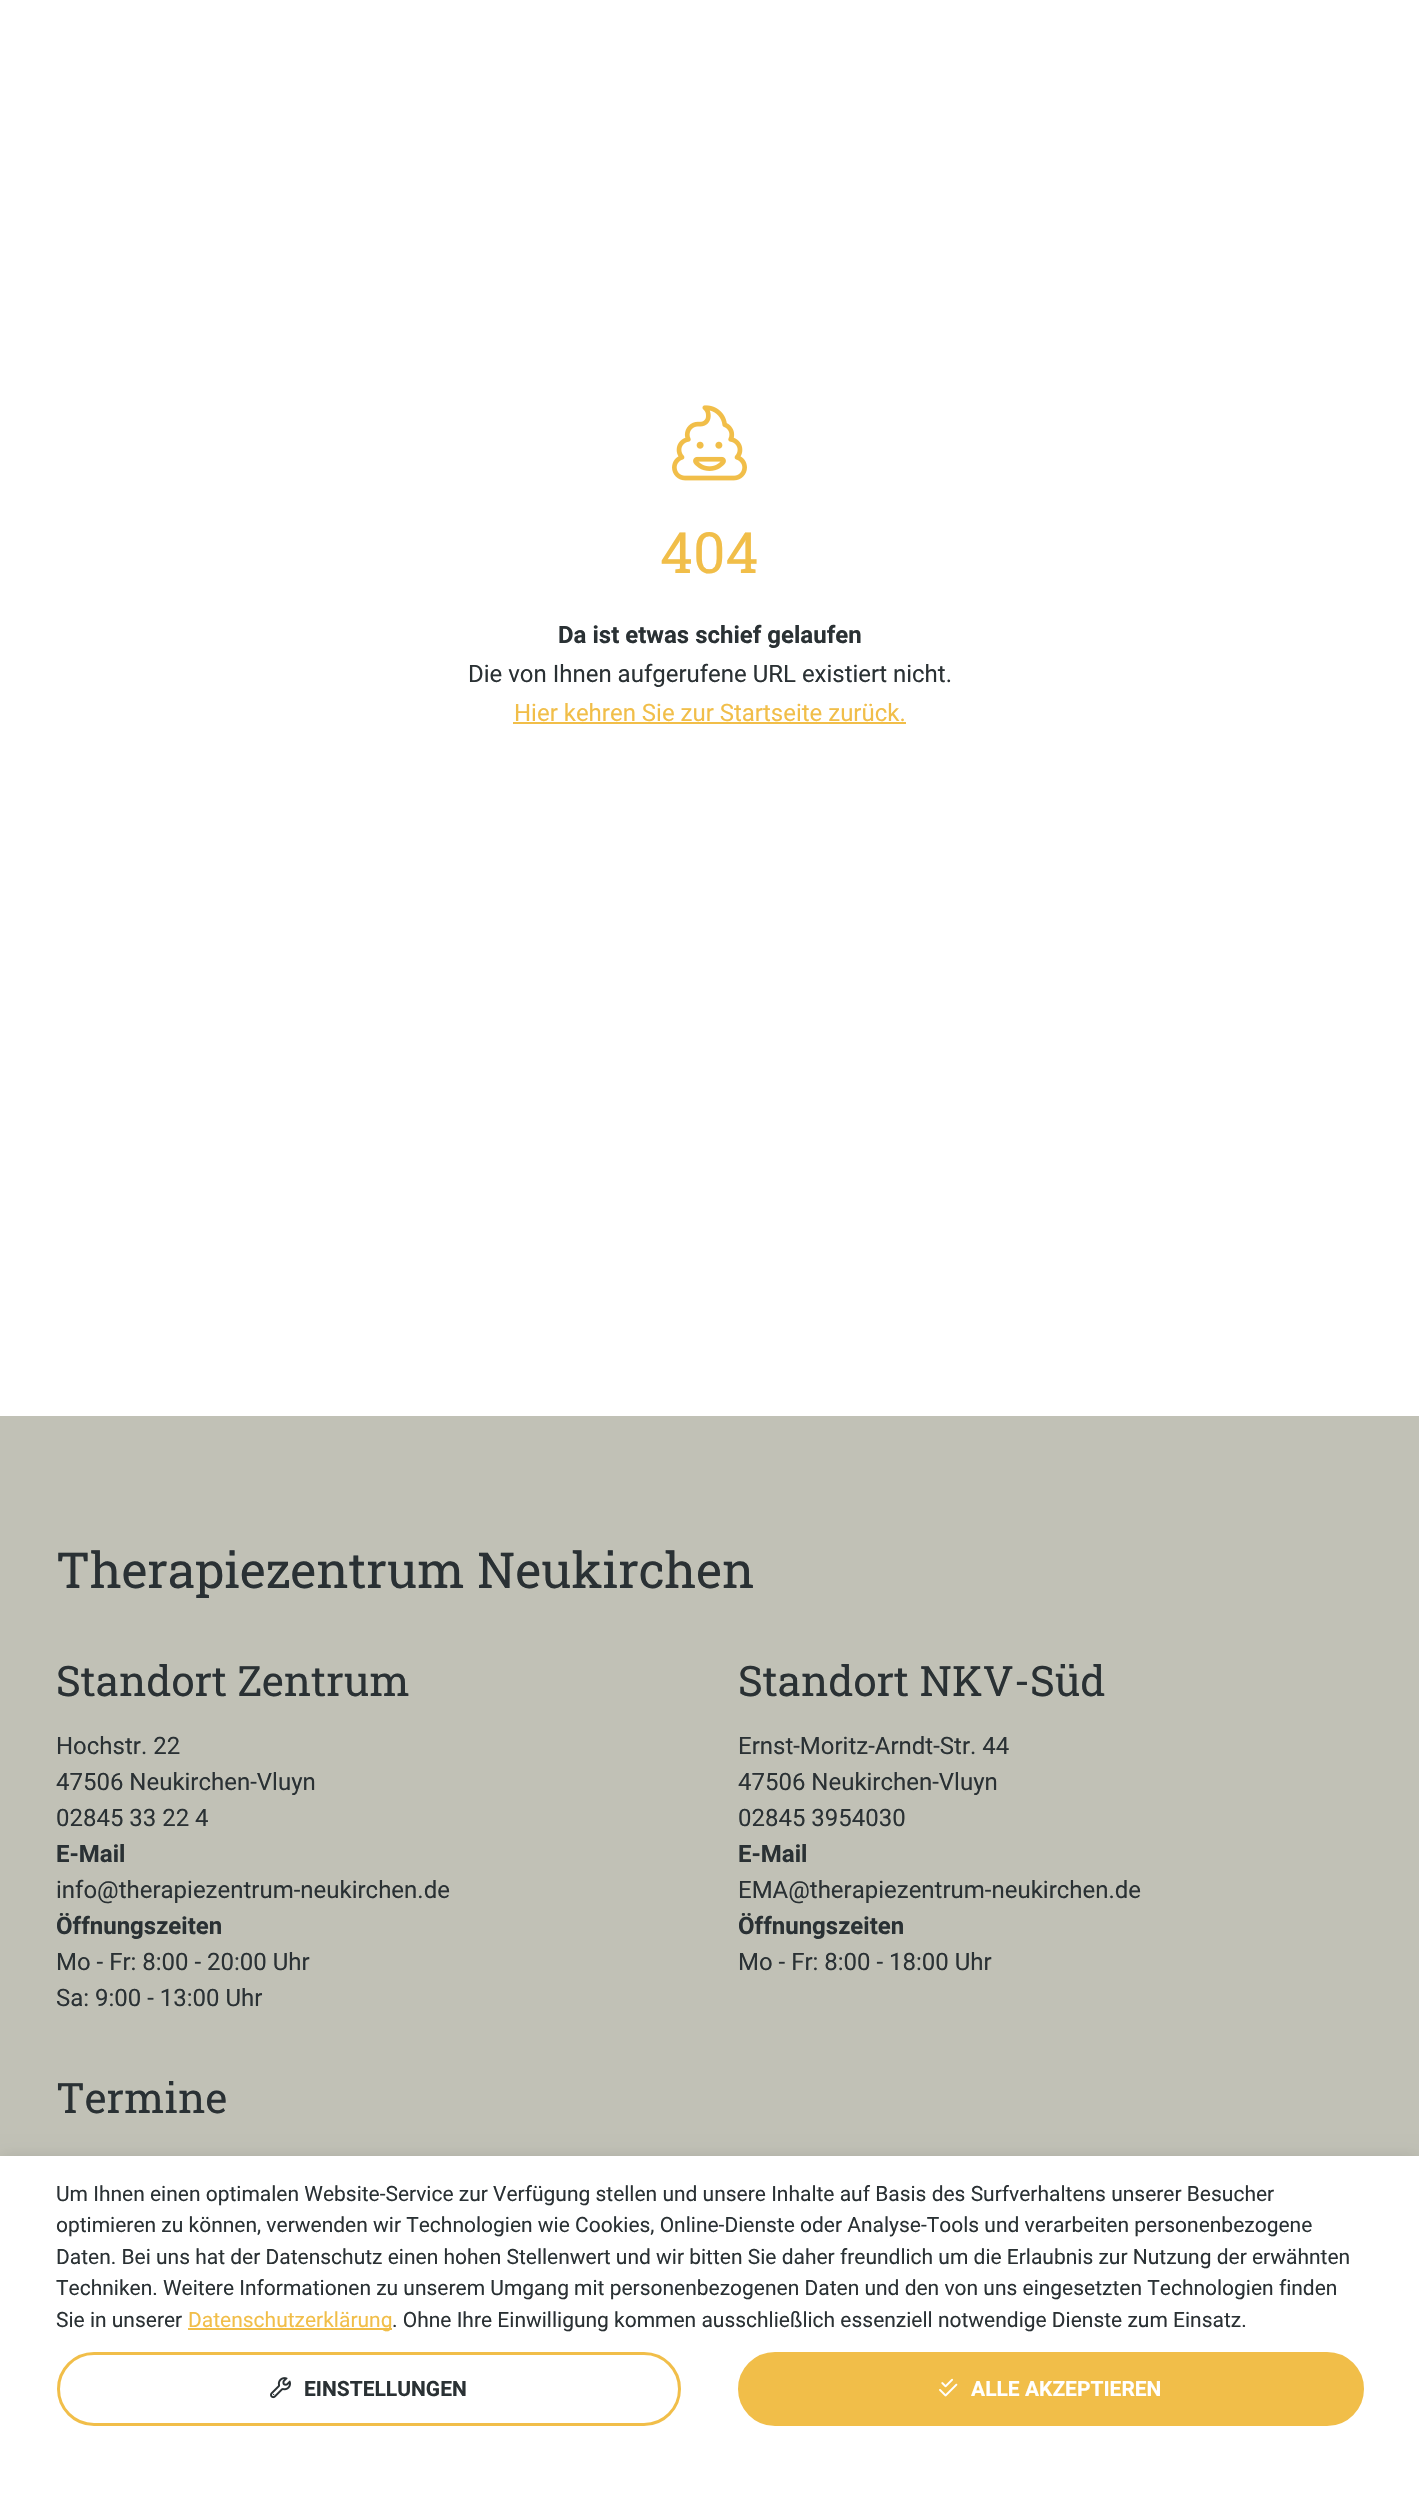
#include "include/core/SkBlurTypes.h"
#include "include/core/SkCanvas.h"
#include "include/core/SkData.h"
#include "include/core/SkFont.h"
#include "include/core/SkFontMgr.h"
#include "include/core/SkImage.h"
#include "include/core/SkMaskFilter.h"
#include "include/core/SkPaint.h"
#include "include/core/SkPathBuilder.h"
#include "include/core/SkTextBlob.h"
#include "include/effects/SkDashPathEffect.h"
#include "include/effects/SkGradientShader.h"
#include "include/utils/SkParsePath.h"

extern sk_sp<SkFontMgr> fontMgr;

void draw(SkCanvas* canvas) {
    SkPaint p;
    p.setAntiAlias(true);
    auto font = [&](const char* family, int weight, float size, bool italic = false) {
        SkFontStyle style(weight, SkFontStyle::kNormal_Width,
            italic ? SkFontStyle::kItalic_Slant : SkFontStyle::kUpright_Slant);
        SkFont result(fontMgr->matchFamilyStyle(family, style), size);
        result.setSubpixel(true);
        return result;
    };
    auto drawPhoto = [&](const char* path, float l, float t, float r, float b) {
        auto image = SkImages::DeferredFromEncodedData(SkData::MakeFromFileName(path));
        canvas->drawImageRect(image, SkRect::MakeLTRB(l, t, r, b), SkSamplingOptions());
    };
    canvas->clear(0xFFFFFFFF);
    drawPhoto("media/1.png", 672, 405, 747, 481);
    auto font1 = font("Roboto Slab", 400, 57);
    p.setColor(0xFFF1BE49);
    canvas->drawString("404", 660, 573, font1, p);
    auto font2 = font("Roboto", 700, 24);
    p.setColor(0xFF2A3134);
    canvas->drawString("Da ist etwas schief gelaufen", 558, 643, font2, p);
    auto font3 = font("Roboto", 400, 24);
    canvas->drawString("Die von Ihnen aufgerufene URL existiert nicht.", 468, 682, font3, p);
    p.setColor(0xFFF1BE49);
    canvas->drawString("Hier kehren Sie zur Startseite zurück.", 514, 721, font3, p);
    canvas->drawRect(SkRect::MakeLTRB(513, 722, 906, 724), p);
    p.setColor(0xFFC1C1B6);
    canvas->drawRect(SkRect::MakeLTRB(0, 1416, 1419, 2156), p);
    auto font4 = font("Roboto Slab", 400, 49.5f);
    p.setColor(0xFF2A3134);
    canvas->drawString("Therapiezentrum Neukirchen", 56, 1588, font4, p);
    auto font5 = font("Roboto Slab", 400, 42);
    canvas->drawString("Standort Zentrum", 56, 1696, font5, p);
    {
        const struct { const char* s; float x, y; } items[] = {
            {"Hochstr. 22", 56, 1754},
            {"47506 Neukirchen-Vluyn", 56, 1790},
            {"02845 33 22 4", 56, 1826},
        };
        for (auto [s, x, y] : items) {
            canvas->drawString(s, x, y, font3, p);
        }
    }
    canvas->drawString("E-Mail", 56, 1862, font2, p);
    canvas->drawString("info@therapiezentrum-neukirchen.de", 56, 1898, font3, p);
    canvas->drawString("Öffnungszeiten", 56, 1934, font2, p);
    canvas->drawString("Mo - Fr: 8:00 - 20:00 Uhr", 56, 1970, font3, p);
    canvas->drawString("Sa: 9:00 - 13:00 Uhr", 56, 2006, font3, p);
    canvas->drawString("Standort NKV-Süd", 738, 1696, font5, p);
    {
        const struct { const char* s; float x, y; } items[] = {
            {"Ernst-Moritz-Arndt-Str. 44", 738, 1754},
            {"47506 Neukirchen-Vluyn", 738, 1790},
            {"02845 3954030", 738, 1826},
        };
        for (auto [s, x, y] : items) {
            canvas->drawString(s, x, y, font3, p);
        }
    }
    canvas->drawString("E-Mail", 738, 1862, font2, p);
    canvas->drawString("EMA@therapiezentrum-neukirchen.de", 738, 1898, font3, p);
    canvas->drawString("Öffnungszeiten", 738, 1934, font2, p);
    canvas->drawString("Mo - Fr: 8:00 - 18:00 Uhr", 738, 1970, font3, p);
    canvas->drawString("Termine", 56, 2113, font5, p);
    p.setColor(0x1A000000);
    p.setMaskFilter(SkMaskFilter::MakeBlur(kNormal_SkBlurStyle, 7.5f));
    canvas->drawRect(SkRect::MakeLTRB(0, 2156, 1419, 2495), p);
    p.setMaskFilter(nullptr);
    p.setColor(0xFFFFFFFF);
    canvas->drawRect(SkRect::MakeLTRB(0, 2156, 1419, 2494), p);
    auto font6 = font("Roboto", 400, 21);
    p.setColor(0xFF2A3134);
    {
        const struct { const char* s; float x, y; } items[] = {
            {"Um Ihnen einen optimalen Website-Service zur Verfügung stellen und unsere Inhalte auf Basis des Surfverhaltens unserer Besucher", 56, 2201},
            {"optimieren zu können, verwenden wir Technologien wie Cookies, Online-Dienste oder Analyse-Tools und verarbeiten personenbezogene", 56, 2232},
            {"Daten. Bei uns hat der Datenschutz einen hohen Stellenwert und wir bitten Sie daher freundlich um die Erlaubnis zur Nutzung der erwähnten", 56, 2264},
            {"Techniken. Weitere Informationen zu unserem Umgang mit personenbezogenen Daten und den von uns eingesetzten Technologien finden", 56, 2295},
            {"Sie in unserer", 56, 2327},
        };
        for (auto [s, x, y] : items) {
            canvas->drawString(s, x, y, font6, p);
        }
    }
    p.setColor(0xFFF1BE49);
    canvas->drawRect(SkRect::MakeLTRB(188, 2328, 392, 2330), p);
    canvas->drawString("Datenschutzerklärung", 188, 2327, font6, p);
    p.setColor(0xFF2A3134);
    canvas->drawString(". Ohne Ihre Einwilligung kommen ausschließlich essenziell notwendige Dienste zum Einsatz.", 392, 2327, font6, p);
    p.setStyle(SkPaint::kStroke_Style);
    p.setStrokeWidth(3);
    p.setColor(0xFFF1BE49);
    canvas->drawRoundRect(SkRect::MakeLTRB(58.5f, 2353.5f, 679.5f, 2424.5f), 35.5f, 35.5f, p);
    drawPhoto("media/2.png", 270, 2377, 291, 2399);
    auto font7 = font("Roboto", 700, 21);
    p.setStyle(SkPaint::kFill_Style);
    p.setColor(0xFF2A3134);
    canvas->drawString("EINSTELLUNGEN", 304, 2396, font7, p);
    p.setColor(0xFFF1BE49);
    canvas->drawRoundRect(SkRect::MakeLTRB(739.5f, 2353.5f, 1362.5f, 2424.5f), 35.5f, 35.5f, p);
    p.setStyle(SkPaint::kStroke_Style);
    canvas->drawRoundRect(SkRect::MakeLTRB(739.5f, 2353.5f, 1362.5f, 2424.5f), 35.5f, 35.5f, p);
    drawPhoto("media/3.png", 939, 2378, 958, 2397);
    p.setStyle(SkPaint::kFill_Style);
    p.setColor(0xFFFFFFFF);
    canvas->drawString("ALLE AKZEPTIEREN", 971, 2396, font7, p);
}
